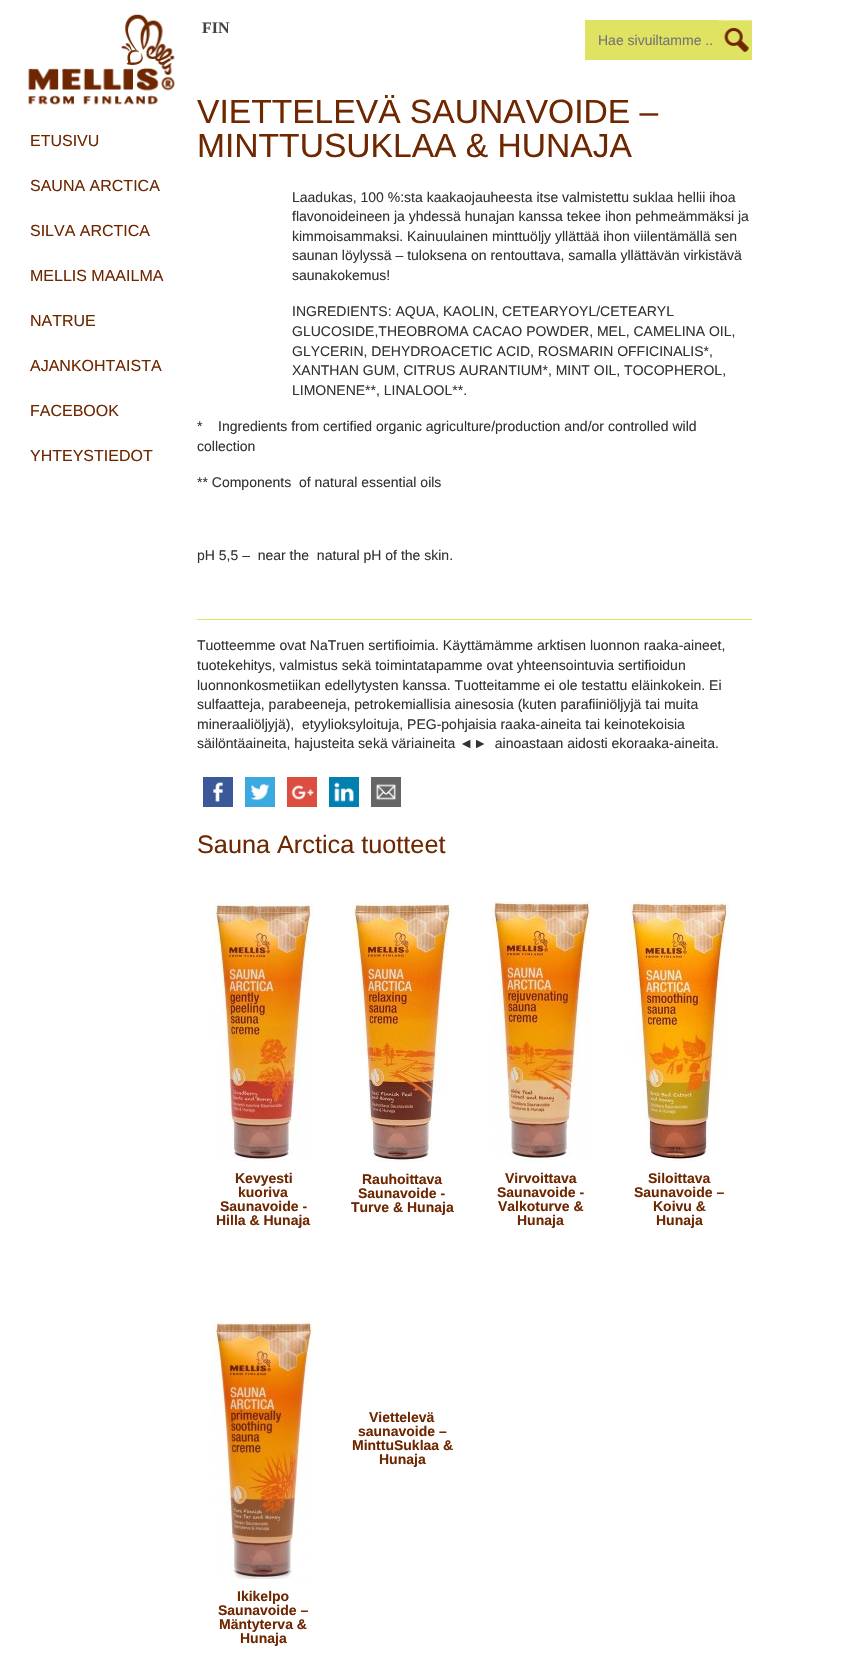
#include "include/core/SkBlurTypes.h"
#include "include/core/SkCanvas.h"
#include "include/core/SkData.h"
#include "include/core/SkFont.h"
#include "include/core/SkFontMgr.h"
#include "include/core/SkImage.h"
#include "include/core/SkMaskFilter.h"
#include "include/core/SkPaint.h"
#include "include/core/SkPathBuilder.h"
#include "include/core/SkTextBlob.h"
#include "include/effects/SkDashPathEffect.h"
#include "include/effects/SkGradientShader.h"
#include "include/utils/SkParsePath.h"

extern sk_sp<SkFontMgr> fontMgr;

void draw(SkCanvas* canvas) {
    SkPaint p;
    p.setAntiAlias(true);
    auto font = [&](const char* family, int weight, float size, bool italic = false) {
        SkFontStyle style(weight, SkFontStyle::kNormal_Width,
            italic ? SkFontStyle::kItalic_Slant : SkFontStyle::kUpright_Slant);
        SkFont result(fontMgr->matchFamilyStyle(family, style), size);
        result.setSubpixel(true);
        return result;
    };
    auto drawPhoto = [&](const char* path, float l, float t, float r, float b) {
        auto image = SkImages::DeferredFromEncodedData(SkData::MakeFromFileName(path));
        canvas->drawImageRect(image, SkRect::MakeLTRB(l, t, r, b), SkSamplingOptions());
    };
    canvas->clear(0xFFFFFFFF);
    drawPhoto("media/1.png", 28, 14, 175, 105);
    auto font1 = font("Liberation Sans", 400, 16);
    p.setColor(0xFF6E2700);
    {
        const struct { const char* s; float x, y; } items[] = {
            {"ETUSIVU", 30, 146},
            {"SAUNA ARCTICA", 30, 191},
            {"SILVA ARCTICA", 30, 236},
            {"MELLIS MAAILMA", 30, 281},
            {"NATRUE", 30, 326},
            {"AJANKOHTAISTA", 30, 371},
            {"FACEBOOK", 30, 416},
            {"YHTEYSTIEDOT", 30, 461},
        };
        for (auto [s, x, y] : items) {
            canvas->drawString(s, x, y, font1, p);
        }
    }
    auto font2 = font("Liberation Serif", 700, 16);
    p.setColor(0xFF444444);
    canvas->drawString("FIN", 202, 33, font2, p);
    p.setColor(0xFFE0E261);
    canvas->drawRect(SkRect::MakeLTRB(585, 20, 752, 60), p);
    auto font3 = font("Liberation Sans", 400, 14);
    p.setColor(0xFF757575);
    canvas->drawString("Hae sivuiltamme ..", 598, 45, font3, p);
    drawPhoto("media/2.png", 724, 28, 749, 52);
    p.setColor(0xFFE9EB90);
    canvas->drawPath(SkPathBuilder().moveTo(720, 21).lineTo(750, 21).cubicTo(751, 21, 752, 22, 752, 23).cubicTo(752, 18.5f, 749, 20, 745, 20).lineTo(725, 20).cubicTo(721, 20, 718, 18.5f, 718, 23).cubicTo(718, 22, 719, 21, 720, 21).close().detach(), p);
    auto font4 = font("Liberation Sans", 400, 33.6f);
    p.setColor(0xFF6E2700);
    canvas->drawString("VIETTELEVÄ SAUNAVOIDE –", 197, 123, font4, p);
    canvas->drawString("MINTTUSUKLAA & HUNAJA", 197, 157, font4, p);
    p.setColor(0xFF333333);
    {
        const struct { const char* s; float x, y; } items[] = {
            {"Laadukas, 100 %:sta kaakaojauheesta itse valmistettu suklaa hellii ihoa", 292, 202},
            {"flavonoideineen ja yhdessä hunajan kanssa tekee ihon pehmeämmäksi ja", 292, 221},
            {"kimmoisammaksi. Kainuulainen minttuöljy yllättää ihon viilentämällä sen", 292, 241},
            {"saunan löylyssä – tuloksena on rentouttava, samalla yllättävän virkistävä", 292, 260},
            {"saunakokemus!", 292, 280},
            {"INGREDIENTS: AQUA, KAOLIN, CETEARYOYL/CETEARYL", 292, 316},
            {"GLUCOSIDE,THEOBROMA CACAO POWDER, MEL, CAMELINA OIL,", 292, 336},
            {"GLYCERIN, DEHYDROACETIC ACID, ROSMARIN OFFICINALIS*,", 292, 356},
            {"XANTHAN GUM, CITRUS AURANTIUM*, MINT OIL, TOCOPHEROL,", 292, 375},
            {"LIMONENE**, LINALOOL**.", 292, 395},
            {"*    Ingredients from certified organic agriculture/production and/or controlled wild", 197, 431},
            {"collection", 197, 451},
            {"** Components  of natural essential oils", 197, 487},
            {"pH 5,5 –  near the  natural pH of the skin.", 197, 560},
        };
        for (auto [s, x, y] : items) {
            canvas->drawString(s, x, y, font3, p);
        }
    }
    p.setColor(0xFFE0E261);
    canvas->drawRect(SkRect::MakeLTRB(197, 619, 752, 620), p);
    p.setColor(0xFF333333);
    {
        const struct { const char* s; float x, y; } items[] = {
            {"Tuotteemme ovat NaTruen sertifioimia. Käyttämämme arktisen luonnon raaka-aineet,", 197, 650},
            {"tuotekehitys, valmistus sekä toimintatapamme ovat yhteensointuvia sertifioidun", 197, 670},
            {"luonnonkosmetiikan edellytysten kanssa. Tuotteitamme ei ole testattu eläinkokein. Ei", 197, 690},
            {"sulfaatteja, parabeeneja, petrokemiallisia ainesosia (kuten parafiiniöljyjä tai muita", 197, 709},
            {"mineraaliöljyjä),  etyylioksyloituja, PEG-pohjaisia raaka-aineita tai keinotekoisia", 197, 729},
            {"säilöntäaineita, hajusteita sekä väriaineita ◄►  ainoastaan aidosti ekoraaka-aineita.", 197, 748},
        };
        for (auto [s, x, y] : items) {
            canvas->drawString(s, x, y, font3, p);
        }
    }
    drawPhoto("media/3.png", 203, 777, 233, 807);
    drawPhoto("media/4.png", 245, 777, 275, 807);
    drawPhoto("media/5.png", 287, 777, 317, 807);
    drawPhoto("media/6.png", 329, 777, 359, 807);
    drawPhoto("media/7.png", 371, 777, 401, 807);
    auto font5 = font("Liberation Sans", 400, 25.25f);
    p.setColor(0xFF6E2700);
    canvas->drawString("Sauna Arctica tuotteet", 197, 853, font5, p);
    drawPhoto("media/8.png", 213, 901, 313, 1161);
    auto font6 = font("Liberation Sans", 700, 14);
    {
        const struct { const char* s; float x, y; } items[] = {
            {"Kevyesti", 235, 1183},
            {"kuoriva", 238, 1197},
            {"Saunavoide -", 220, 1211},
            {"Hilla & Hunaja", 216, 1225},
        };
        for (auto [s, x, y] : items) {
            canvas->drawString(s, x, y, font6, p);
        }
    }
    drawPhoto("media/9.png", 352, 901, 452, 1162);
    {
        const struct { const char* s; float x, y; } items[] = {
            {"Rauhoittava", 362, 1184},
            {"Saunavoide -", 358, 1198},
            {"Turve & Hunaja", 351, 1212},
        };
        for (auto [s, x, y] : items) {
            canvas->drawString(s, x, y, font6, p);
        }
    }
    drawPhoto("media/10.png", 491, 901, 591, 1161);
    {
        const struct { const char* s; float x, y; } items[] = {
            {"Virvoittava", 505, 1183},
            {"Saunavoide -", 497, 1197},
            {"Valkoturve &", 498, 1211},
            {"Hunaja", 517, 1225},
        };
        for (auto [s, x, y] : items) {
            canvas->drawString(s, x, y, font6, p);
        }
    }
    drawPhoto("media/11.png", 629, 901, 729, 1161);
    {
        const struct { const char* s; float x, y; } items[] = {
            {"Siloittava", 648, 1183},
            {"Saunavoide –", 634, 1197},
            {"Koivu &", 653, 1211},
            {"Hunaja", 656, 1225},
            {"Viettelevä", 369, 1422},
            {"saunavoide –", 358, 1436},
            {"MinttuSuklaa &", 352, 1450},
            {"Hunaja", 379, 1464},
        };
        for (auto [s, x, y] : items) {
            canvas->drawString(s, x, y, font6, p);
        }
    }
    drawPhoto("media/12.png", 213, 1321, 313, 1579);
    {
        const struct { const char* s; float x, y; } items[] = {
            {"Ikikelpo", 237, 1601},
            {"Saunavoide –", 218, 1615},
            {"Mäntyterva &", 219, 1629},
            {"Hunaja", 240, 1643},
        };
        for (auto [s, x, y] : items) {
            canvas->drawString(s, x, y, font6, p);
        }
    }
}
